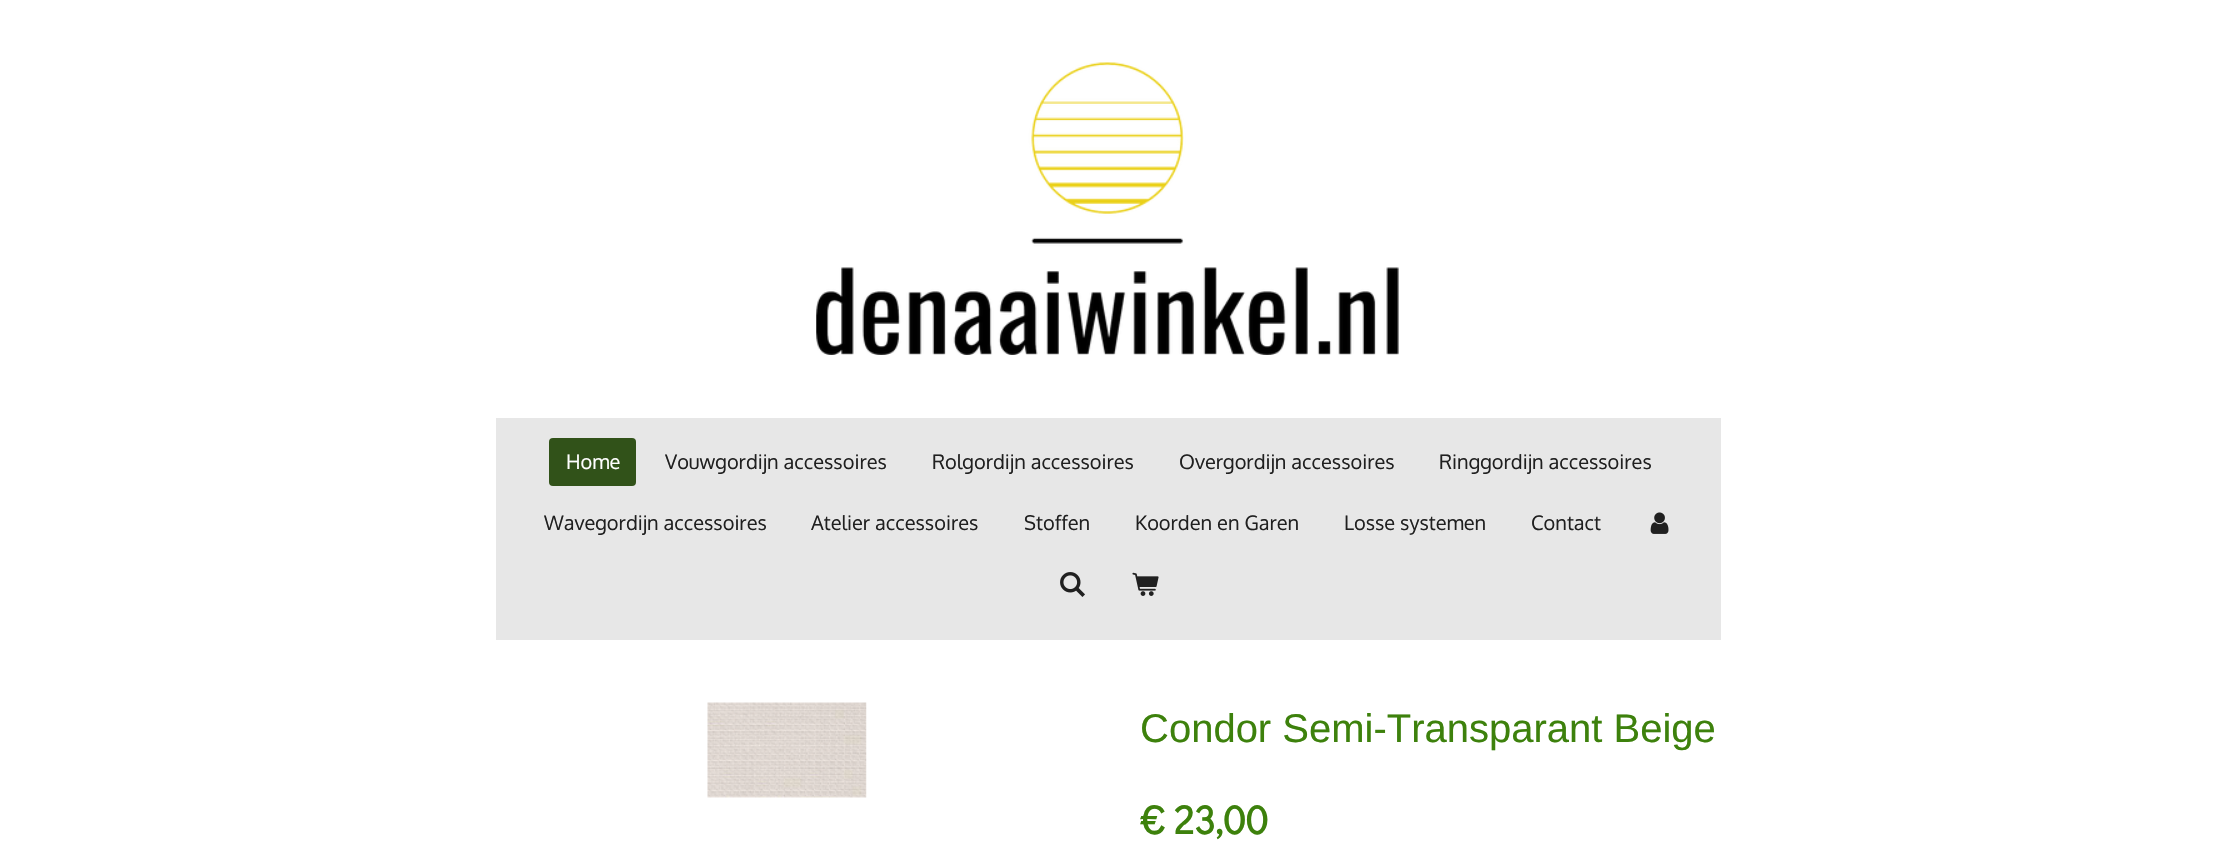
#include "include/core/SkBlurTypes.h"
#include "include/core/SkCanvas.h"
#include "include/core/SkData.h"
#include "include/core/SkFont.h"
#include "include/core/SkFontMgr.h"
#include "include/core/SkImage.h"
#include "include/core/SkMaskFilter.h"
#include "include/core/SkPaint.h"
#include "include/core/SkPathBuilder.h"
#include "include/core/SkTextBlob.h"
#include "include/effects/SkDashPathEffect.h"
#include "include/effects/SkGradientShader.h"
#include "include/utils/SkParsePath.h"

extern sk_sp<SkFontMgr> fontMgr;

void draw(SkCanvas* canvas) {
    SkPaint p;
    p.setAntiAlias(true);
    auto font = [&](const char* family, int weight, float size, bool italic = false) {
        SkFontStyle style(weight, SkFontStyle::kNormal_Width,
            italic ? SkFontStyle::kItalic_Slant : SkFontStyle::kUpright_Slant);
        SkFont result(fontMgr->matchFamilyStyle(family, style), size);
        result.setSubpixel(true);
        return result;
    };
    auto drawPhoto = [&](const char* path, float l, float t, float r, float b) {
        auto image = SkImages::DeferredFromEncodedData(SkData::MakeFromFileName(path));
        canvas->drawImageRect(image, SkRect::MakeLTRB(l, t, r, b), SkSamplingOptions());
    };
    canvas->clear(0xFFFFFFFF);
    drawPhoto("media/1.png", 816, 62, 1399, 355);
    p.setColor(0xFFE7E7E7);
    canvas->drawRect(SkRect::MakeLTRB(496, 418, 1721, 640), p);
    p.setColor(0xFF315219);
    canvas->drawRoundRect(SkRect::MakeLTRB(549, 438, 636, 486), 4, 4, p);
    auto font1 = font("Oxygen", 400, 20);
    p.setColor(0xFFFFFFFF);
    canvas->drawString("Home", 566, 469, font1, p);
    p.setColor(0xFF202020);
    {
        const struct { const char* s; float x, y; } items[] = {
            {"Vouwgordijn accessoires", 665, 469},
            {"Rolgordijn accessoires", 932, 469},
            {"Overgordijn accessoires", 1179, 469},
            {"Ringgordijn accessoires", 1439, 469},
            {"Wavegordijn accessoires", 544, 530},
            {"Atelier accessoires", 811, 530},
            {"Stoffen", 1024, 530},
            {"Koorden en Garen", 1135, 530},
            {"Losse systemen", 1344, 530},
            {"Contact", 1531, 530},
        };
        for (auto [s, x, y] : items) {
            canvas->drawString(s, x, y, font1, p);
        }
    }
    drawPhoto("media/2.png", 1650, 512, 1669, 534);
    drawPhoto("media/3.png", 1060, 572, 1085, 597);
    drawPhoto("media/4.png", 1132, 572, 1159, 596);
    drawPhoto("media/5.png", 707, 702, 867, 798);
    auto font2 = font("Arimo", 400, 40);
    p.setColor(0xFF3D810C);
    canvas->drawString("Condor Semi-Transparant Beige", 1140, 742, font2, p);
    auto font3 = font("Didact Gothic", 700, 40);
    canvas->drawString("€ 23,00", 1140, 834, font3, p);
}
